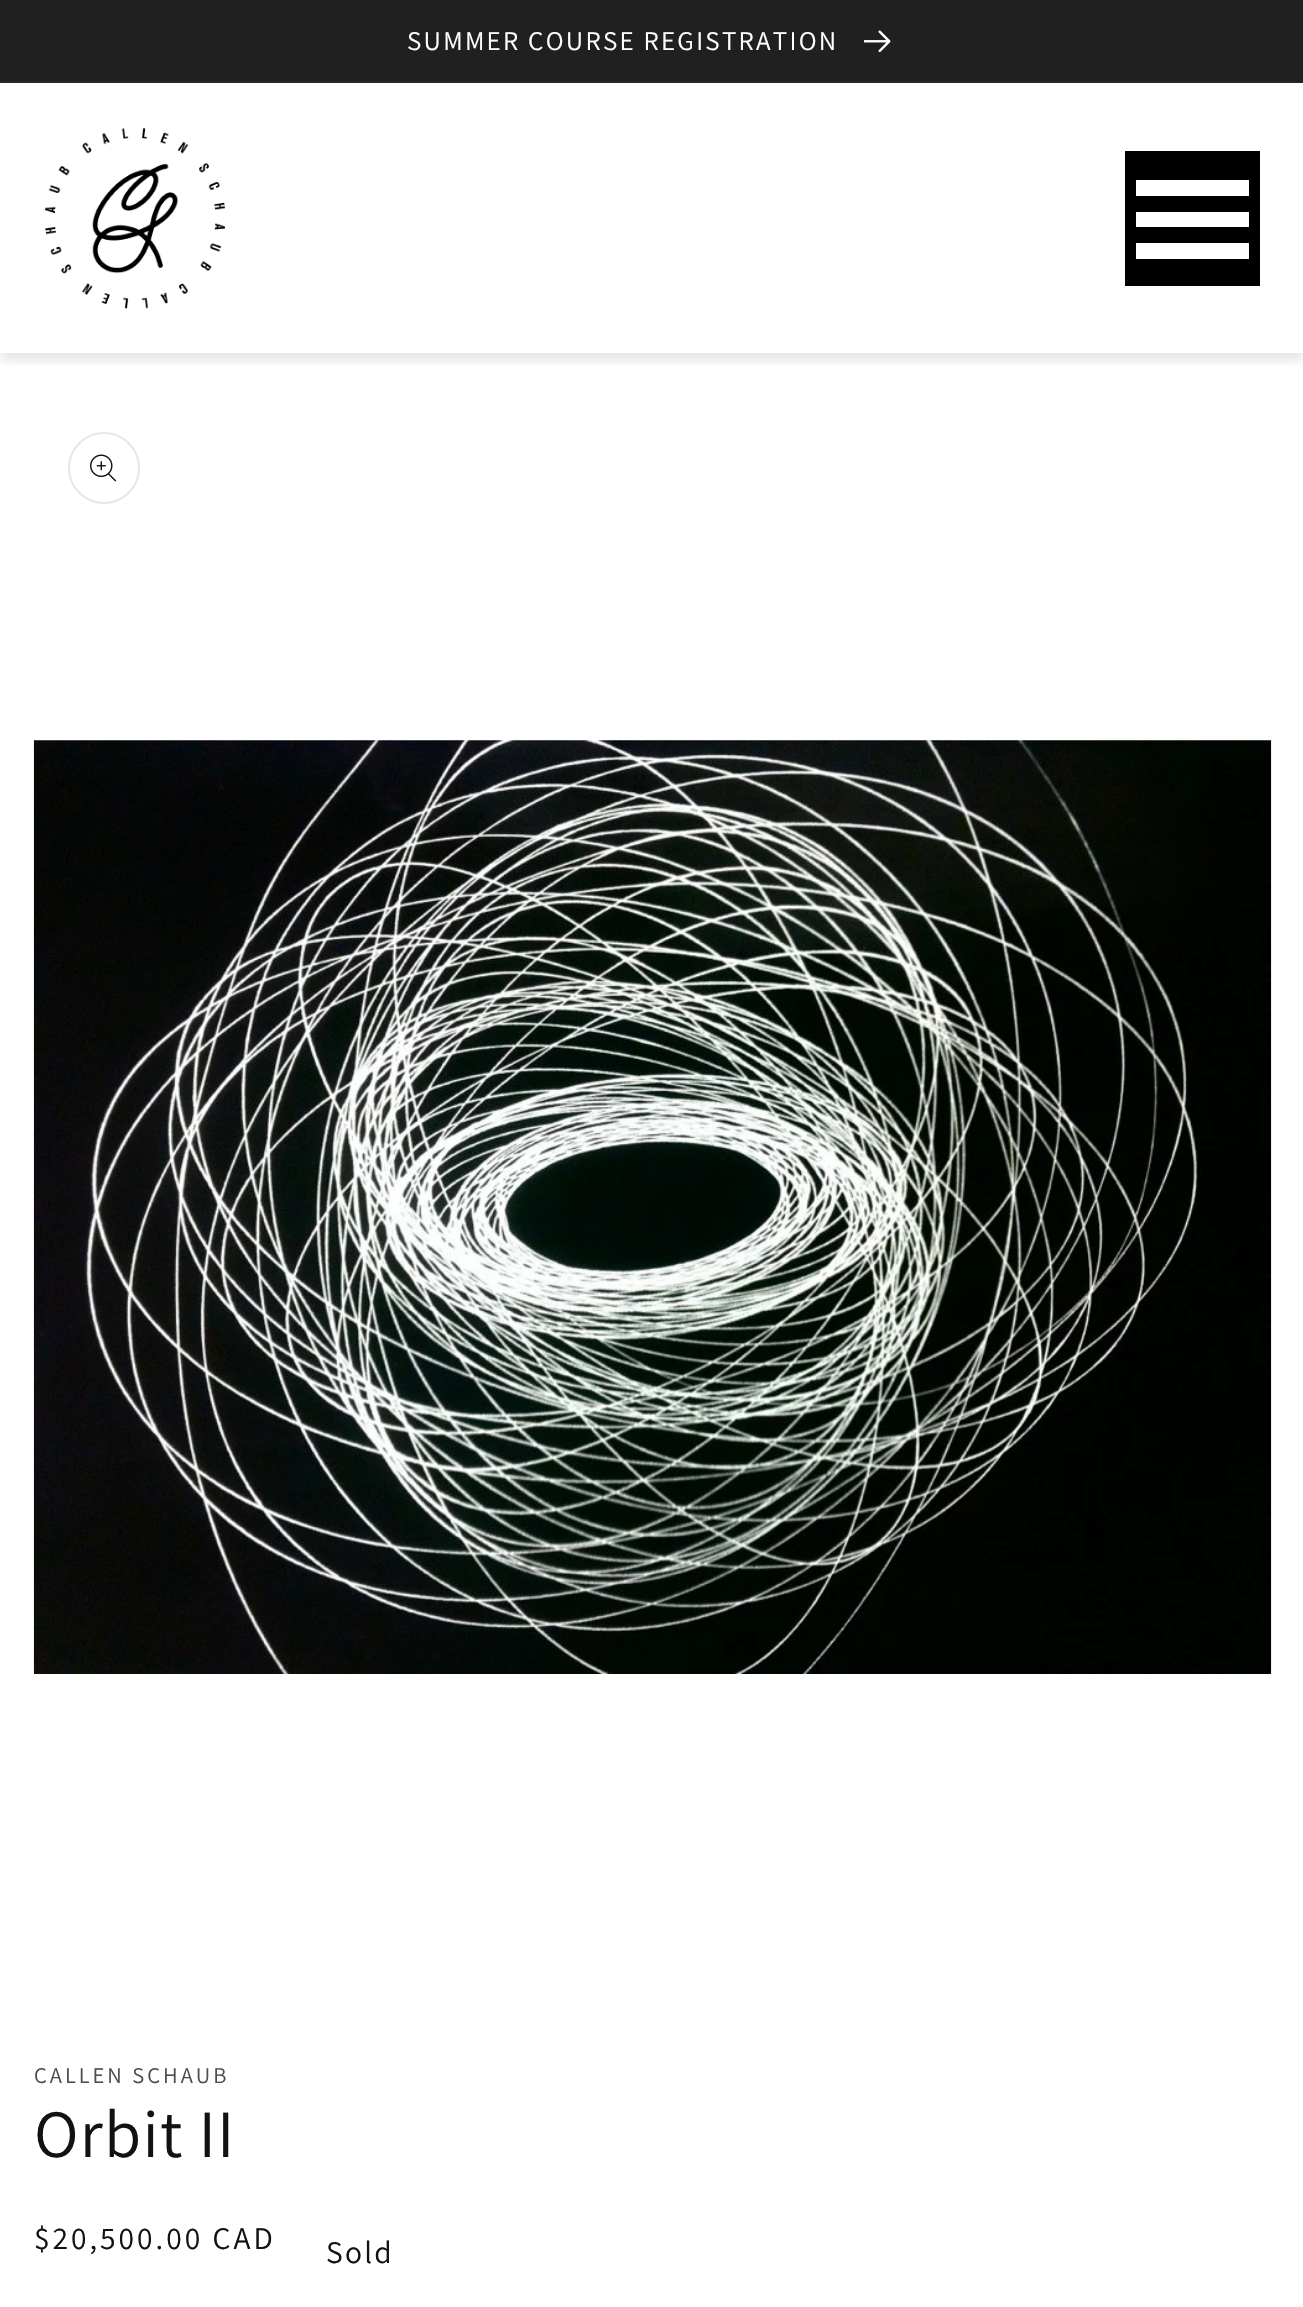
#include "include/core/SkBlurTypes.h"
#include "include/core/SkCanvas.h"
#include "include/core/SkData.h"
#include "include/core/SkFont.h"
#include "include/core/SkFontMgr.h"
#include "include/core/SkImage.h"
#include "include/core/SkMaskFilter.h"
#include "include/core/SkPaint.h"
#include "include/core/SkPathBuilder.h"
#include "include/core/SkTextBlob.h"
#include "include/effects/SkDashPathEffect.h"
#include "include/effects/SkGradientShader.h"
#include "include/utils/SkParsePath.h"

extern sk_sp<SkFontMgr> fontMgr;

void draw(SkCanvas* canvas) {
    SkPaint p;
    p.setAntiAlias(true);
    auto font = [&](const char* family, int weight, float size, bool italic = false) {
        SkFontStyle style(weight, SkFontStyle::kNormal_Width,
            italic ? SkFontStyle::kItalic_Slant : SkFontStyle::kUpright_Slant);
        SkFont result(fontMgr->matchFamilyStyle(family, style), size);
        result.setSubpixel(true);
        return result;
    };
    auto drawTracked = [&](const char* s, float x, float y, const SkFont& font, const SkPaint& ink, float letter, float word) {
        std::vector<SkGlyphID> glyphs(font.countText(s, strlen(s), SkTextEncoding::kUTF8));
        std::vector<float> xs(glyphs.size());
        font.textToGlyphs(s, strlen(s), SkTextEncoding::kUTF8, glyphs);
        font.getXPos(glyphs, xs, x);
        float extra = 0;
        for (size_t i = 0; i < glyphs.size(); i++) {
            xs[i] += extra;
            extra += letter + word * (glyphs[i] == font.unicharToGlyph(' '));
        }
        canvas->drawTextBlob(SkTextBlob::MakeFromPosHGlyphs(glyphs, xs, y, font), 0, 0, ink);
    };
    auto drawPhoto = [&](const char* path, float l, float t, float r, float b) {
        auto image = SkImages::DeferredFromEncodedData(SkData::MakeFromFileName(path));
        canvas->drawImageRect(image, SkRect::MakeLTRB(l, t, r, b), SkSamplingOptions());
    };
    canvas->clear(0xFFFFFFFF);
    canvas->save();
    canvas->clipRect(SkRect::MakeLTRB(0, 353, 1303, 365));
    p.setColor(0x1A000000);
    p.setMaskFilter(SkMaskFilter::MakeBlur(kNormal_SkBlurStyle, 5.5f));
    canvas->drawRect(SkRect::MakeLTRB(0, 90, 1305, 360), p);
    p.setMaskFilter(nullptr);
    canvas->restore();
    p.setColor(0xFF252525);
    canvas->drawRect(SkRect::MakeLTRB(0, 81, 1303, 83), p);
    p.setColor(0xFF202020);
    canvas->drawRect(SkRect::MakeLTRB(0, 0, 1303, 81), p);
    auto font1 = font("Assistant", 400, 27);
    p.setColor(0xFFFFFFFF);
    drawTracked("SUMMER COURSE REGISTRATION", 407, 50, font1, p, 2.25f, 0);
    drawPhoto("media/1.png", 864, 30, 891, 52);
    drawPhoto("media/2.png", 45, 128, 225, 309);
    {
        const struct { float l, t, r, b; SkColor color; } items[] = {
            {1125, 151, 1260, 286, 0xFF000000},
            {1136, 180, 1249, 196, 0xFFFFFFFF},
            {1136, 212, 1249, 227, 0xFFFFFFFF},
            {1136, 243, 1249, 259, 0xFFFFFFFF},
        };
        for (auto [l, t, r, b, color] : items) {
            p.setColor(color);
            canvas->drawRect(SkRect::MakeLTRB(l, t, r, b), p);
        }
    }
    p.setStyle(SkPaint::kStroke_Style);
    p.setStrokeWidth(2);
    p.setColor(0xFFE7E7E7);
    canvas->drawCircle(104, 468, 35, p);
    drawPhoto("media/3.png", 90, 454, 117, 482);
    drawPhoto("media/4.png", 33, 740, 1272, 1674);
    auto font2 = font("Assistant", 400, 22.5f);
    p.setStyle(SkPaint::kFill_Style);
    p.setColor(0xFF4D4D4D);
    drawTracked("CALLEN SCHAUB", 34, 2083, font2, p, 3, 0);
    auto font3 = font("Assistant", 400, 67.5f);
    p.setColor(0xFF121212);
    drawTracked("Orbit II", 34, 2157, font3, p, 1.25f, 0);
    auto font4 = font("Assistant", 400, 31.5f);
    drawTracked("$20,500.00 CAD", 34, 2249, font4, p, 3, 0);
    drawTracked("Sold", 326, 2263, font4, p, 2.25f, 0);
}
